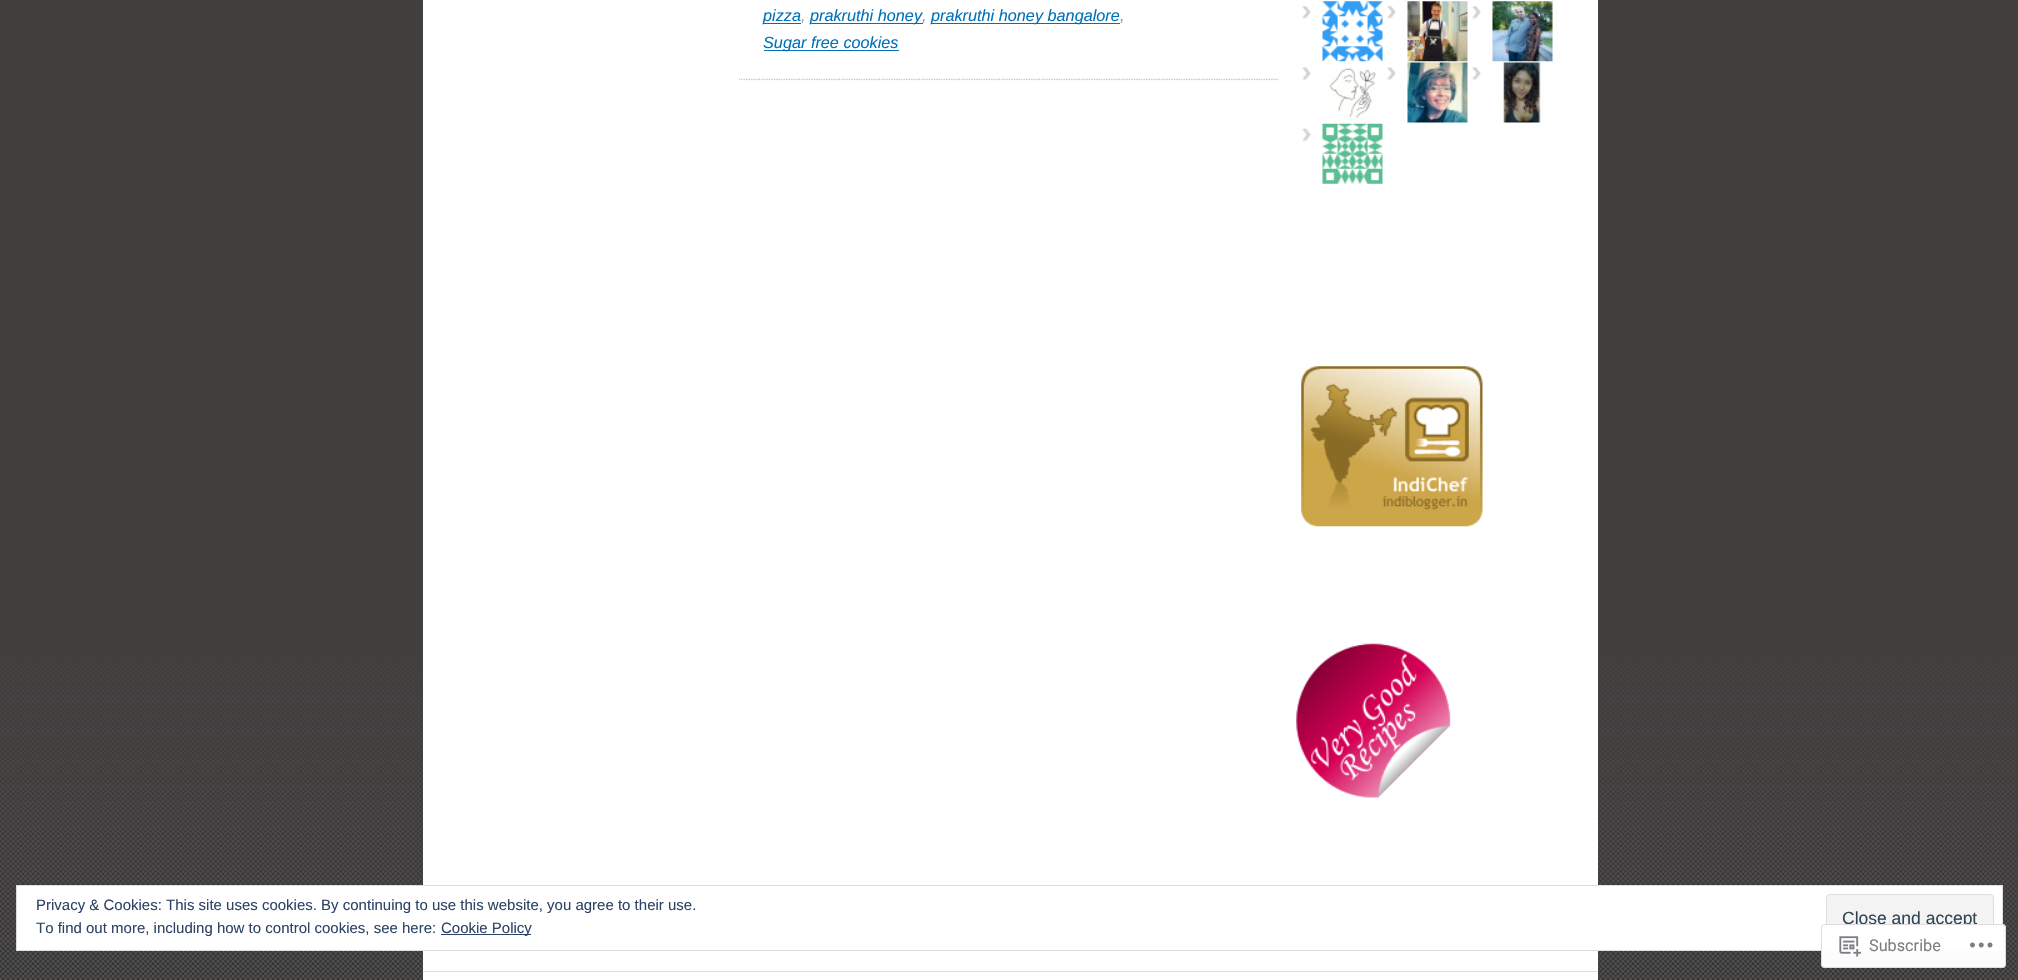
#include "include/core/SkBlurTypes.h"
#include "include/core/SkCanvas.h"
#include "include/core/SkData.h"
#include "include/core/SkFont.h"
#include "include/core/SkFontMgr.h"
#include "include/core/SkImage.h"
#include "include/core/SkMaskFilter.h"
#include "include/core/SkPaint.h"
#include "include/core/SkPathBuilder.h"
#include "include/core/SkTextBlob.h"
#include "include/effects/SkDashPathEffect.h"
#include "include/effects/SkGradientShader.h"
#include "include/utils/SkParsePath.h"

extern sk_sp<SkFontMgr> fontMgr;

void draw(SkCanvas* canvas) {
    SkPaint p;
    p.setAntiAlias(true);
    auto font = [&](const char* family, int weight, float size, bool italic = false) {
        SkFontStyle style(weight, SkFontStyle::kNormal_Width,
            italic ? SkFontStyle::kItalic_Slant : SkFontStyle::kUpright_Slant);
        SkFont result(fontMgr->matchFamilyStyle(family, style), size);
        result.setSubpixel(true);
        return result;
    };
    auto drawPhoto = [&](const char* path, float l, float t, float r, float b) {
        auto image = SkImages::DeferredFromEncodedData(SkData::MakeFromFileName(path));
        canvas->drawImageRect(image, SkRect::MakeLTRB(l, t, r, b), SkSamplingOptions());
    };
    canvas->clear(0xFF42403F);
    drawPhoto("media/1.png", 0, 663, 2018, 980);
    p.setColor(0xFFFFFFFF);
    canvas->drawRect(SkRect::MakeLTRB(423, 0, 1598, 885), p);
    drawPhoto("media/2.png", 738, 78, 1279, 81);
    p.setColor(0xFF0071BB);
    canvas->drawRect(SkRect::MakeLTRB(764, 23, 801, 24), p);
    auto font1 = font("Liberation Sans", 400, 16.25f, true);
    canvas->drawString("pizza", 763, 21, font1, p);
    p.setColor(0xFF999999);
    canvas->drawString(",", 801, 21, font1, p);
    p.setColor(0xFF0071BB);
    canvas->drawRect(SkRect::MakeLTRB(810, 23, 923, 24), p);
    canvas->drawString("prakruthi honey", 810, 21, font1, p);
    p.setColor(0xFF999999);
    canvas->drawString(",", 922, 21, font1, p);
    p.setColor(0xFF0071BB);
    canvas->drawRect(SkRect::MakeLTRB(931, 23, 1120, 24), p);
    canvas->drawString("prakruthi honey bangalore", 931, 21, font1, p);
    p.setColor(0xFF999999);
    canvas->drawString(",", 1120, 21, font1, p);
    p.setColor(0xFF0071BB);
    canvas->drawRect(SkRect::MakeLTRB(764, 50, 899, 51), p);
    canvas->drawString("Sugar free cookies", 763, 48, font1, p);
    drawPhoto("media/3.png", 1302, 6, 1311, 19);
    drawPhoto("media/4.png", 1322, 1, 1383, 62);
    drawPhoto("media/3.png", 1387, 6, 1396, 19);
    drawPhoto("media/5.png", 1407, 1, 1468, 62);
    drawPhoto("media/3.png", 1472, 6, 1481, 19);
    drawPhoto("media/6.png", 1492, 1, 1553, 62);
    drawPhoto("media/7.png", 1302, 67, 1311, 80);
    drawPhoto("media/8.png", 1329, 68, 1377, 119);
    drawPhoto("media/7.png", 1387, 67, 1396, 80);
    drawPhoto("media/9.png", 1407, 62, 1468, 123);
    drawPhoto("media/7.png", 1472, 67, 1481, 80);
    drawPhoto("media/10.png", 1498, 62, 1543, 123);
    drawPhoto("media/11.png", 1302, 128, 1312, 142);
    drawPhoto("media/12.png", 1322, 123, 1383, 184);
    drawPhoto("media/13.png", 1301, 366, 1483, 527);
    drawPhoto("media/14.png", 1296, 643, 1451, 798);
    p.setColor(0xFFFFFFFF);
    canvas->drawRect(SkRect::MakeLTRB(423, 951, 1598, 980), p);
    p.setColor(0xFFDDDDDD);
    canvas->drawRect(SkRect::MakeLTRB(423, 971, 1598, 972), p);
    p.setColor(0xFFFFFFFF);
    canvas->drawRect(SkRect::MakeLTRB(16.5f, 885.5f, 2002.5f, 950.5f), p);
    p.setStyle(SkPaint::kStroke_Style);
    p.setStrokeWidth(1);
    p.setColor(0xFFDEDEDE);
    canvas->drawRect(SkRect::MakeLTRB(16.5f, 885.5f, 2002.5f, 950.5f), p);
    auto font2 = font("Liberation Sans", 400, 15);
    p.setStyle(SkPaint::kFill_Style);
    p.setColor(0xFF2E4467);
    canvas->drawString("Privacy & Cookies: This site uses cookies. By continuing to use this website, you agree to their use.", 36, 910, font2, p);
    p.setColor(0xFFF3F3F3);
    canvas->drawRoundRect(SkRect::MakeLTRB(1826.5f, 894.5f, 1993.5f, 942.5f), 3.5f, 3.5f, p);
    p.setStyle(SkPaint::kStroke_Style);
    p.setColor(0xFFDEDEDE);
    canvas->drawRoundRect(SkRect::MakeLTRB(1826.5f, 894.5f, 1993.5f, 942.5f), 3.5f, 3.5f, p);
    auto font3 = font("Liberation Sans", 400, 17.5f);
    p.setStyle(SkPaint::kFill_Style);
    p.setColor(0xFF2E4453);
    canvas->drawString("Close and accept", 1842, 924, font3, p);
    p.setColor(0xFF2E4467);
    canvas->drawString("To find out more, including how to control cookies, see here:", 36, 933, font2, p);
    canvas->drawRect(SkRect::MakeLTRB(441, 934, 531, 935), p);
    canvas->drawString("Cookie Policy", 441, 933, font2, p);
    p.setColor(0xFAFFFFFF);
    canvas->drawRoundRect(SkRect::MakeLTRB(1821, 924, 2006, 968), 4, 4, p);
    p.setStyle(SkPaint::kStroke_Style);
    p.setColor(0xFADCDCDE);
    canvas->drawRoundRect(SkRect::MakeLTRB(1821.5f, 924.5f, 2005.5f, 967.5f), 3.5f, 3.5f, p);
    drawPhoto("media/15.png", 1839, 936, 1861, 957);
    auto font4 = font("Roboto", 400, 16.25f);
    p.setStyle(SkPaint::kFill_Style);
    p.setColor(0xFF7B7F84);
    canvas->drawString("Subscribe", 1869, 951, font4, p);
    drawPhoto("media/16.png", 1970, 942, 1993, 948);
}
